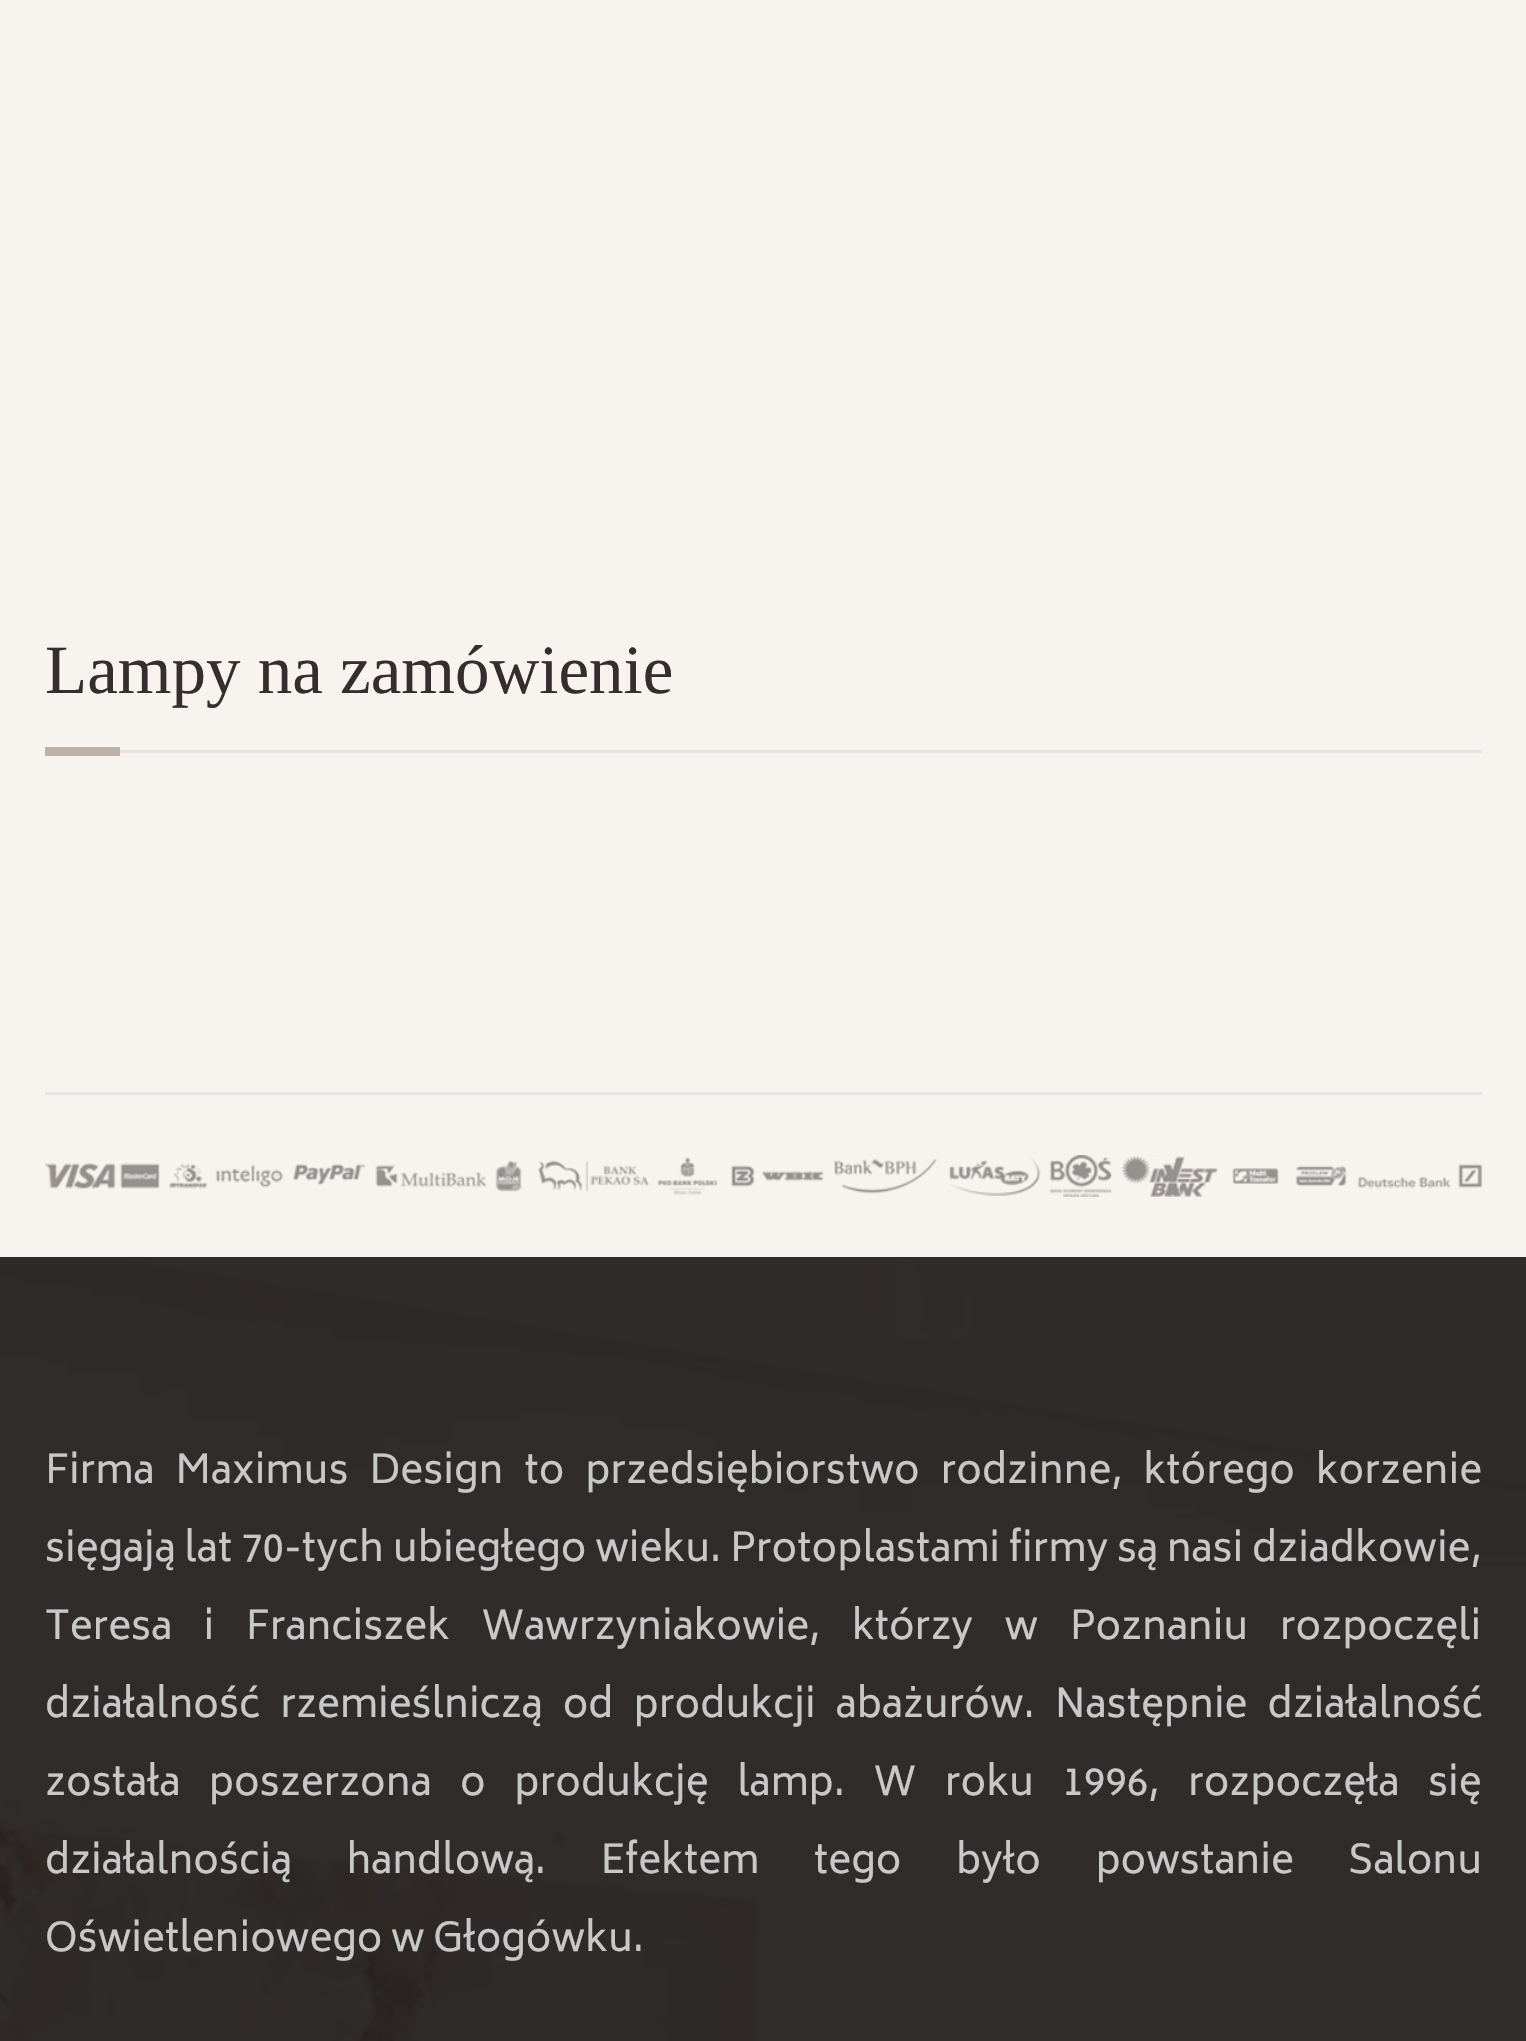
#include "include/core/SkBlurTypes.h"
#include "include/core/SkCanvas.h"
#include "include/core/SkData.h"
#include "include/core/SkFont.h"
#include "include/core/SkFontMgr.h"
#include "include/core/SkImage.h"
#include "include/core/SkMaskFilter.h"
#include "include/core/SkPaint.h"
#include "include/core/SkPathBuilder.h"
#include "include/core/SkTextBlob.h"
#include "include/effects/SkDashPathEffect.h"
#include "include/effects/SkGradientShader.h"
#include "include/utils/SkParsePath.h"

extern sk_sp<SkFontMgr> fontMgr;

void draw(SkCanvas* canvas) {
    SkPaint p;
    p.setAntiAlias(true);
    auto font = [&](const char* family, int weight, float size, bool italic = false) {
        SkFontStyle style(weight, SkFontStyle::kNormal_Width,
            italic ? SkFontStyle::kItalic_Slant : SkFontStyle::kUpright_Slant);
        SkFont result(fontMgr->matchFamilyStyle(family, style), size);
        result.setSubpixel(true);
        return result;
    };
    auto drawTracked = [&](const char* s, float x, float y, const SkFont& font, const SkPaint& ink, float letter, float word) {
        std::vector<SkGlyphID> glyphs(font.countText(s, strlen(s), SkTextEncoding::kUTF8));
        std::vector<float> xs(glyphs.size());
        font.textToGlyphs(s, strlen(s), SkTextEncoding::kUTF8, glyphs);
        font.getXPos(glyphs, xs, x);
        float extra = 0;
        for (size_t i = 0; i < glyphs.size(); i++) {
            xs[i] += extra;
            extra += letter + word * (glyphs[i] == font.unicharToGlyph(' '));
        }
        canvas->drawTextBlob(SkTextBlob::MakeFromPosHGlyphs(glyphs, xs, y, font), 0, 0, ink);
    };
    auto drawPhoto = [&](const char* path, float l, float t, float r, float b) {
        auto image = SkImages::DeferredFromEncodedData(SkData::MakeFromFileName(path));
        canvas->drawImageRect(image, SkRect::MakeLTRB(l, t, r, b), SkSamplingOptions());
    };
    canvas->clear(0xFFF7F4F0);
    auto font1 = font("Liberation Serif", 400, 69);
    p.setColor(0xFF342E2E);
    canvas->drawString("Lampy na zamówienie", 45, 693, font1, p);
    {
        const struct { float l, t, r, b; SkColor color; } items[] = {
            {45, 747, 120, 756, 0xFFBEB2A6},
            {120, 750, 1482, 753, 0xFFE5E5E5},
            {45, 1092, 1482, 1095, 0xFFE5E5E5},
        };
        for (auto [l, t, r, b, color] : items) {
            p.setColor(color);
            canvas->drawRect(SkRect::MakeLTRB(l, t, r, b), p);
        }
    }
    drawPhoto("media/1.png", 45, 1155, 1482, 1197);
    p.setColor(0xFF252020);
    canvas->drawRect(SkRect::MakeLTRB(0, 1257, 1526, 2041), p);
    drawPhoto("media/2.png", 0, 1257, 1526, 2041);
    auto font2 = font("Biryani", 400, 39);
    p.setColor(0xFFC8C8C8);
    drawTracked("Firma Maximus Design to przedsiębiorstwo rodzinne, którego korzenie", 45, 1483, font2, p, 0, 12.25f);
    drawTracked("sięgają lat 70-tych ubiegłego wieku. Protoplastami firmy są nasi dziadkowie,", 45, 1561, font2, p, 0, 0.25f);
    drawTracked("Teresa i Franciszek Wawrzyniakowie, którzy w Poznaniu rozpoczęli", 45, 1639, font2, p, 0, 23);
    drawTracked("działalność rzemieślniczą od produkcji abażurów. Następnie działalność", 45, 1717, font2, p, 0, 11.5f);
    drawTracked("została poszerzona o produkcję lamp. W roku 1996, rozpoczęła się", 45, 1795, font2, p, 0, 20);
    drawTracked("działalnością handlową. Efektem tego było powstanie Salonu", 45, 1873, font2, p, 0, 46);
    canvas->drawString("Oświetleniowego w Głogówku.", 45, 1951, font2, p);
}
